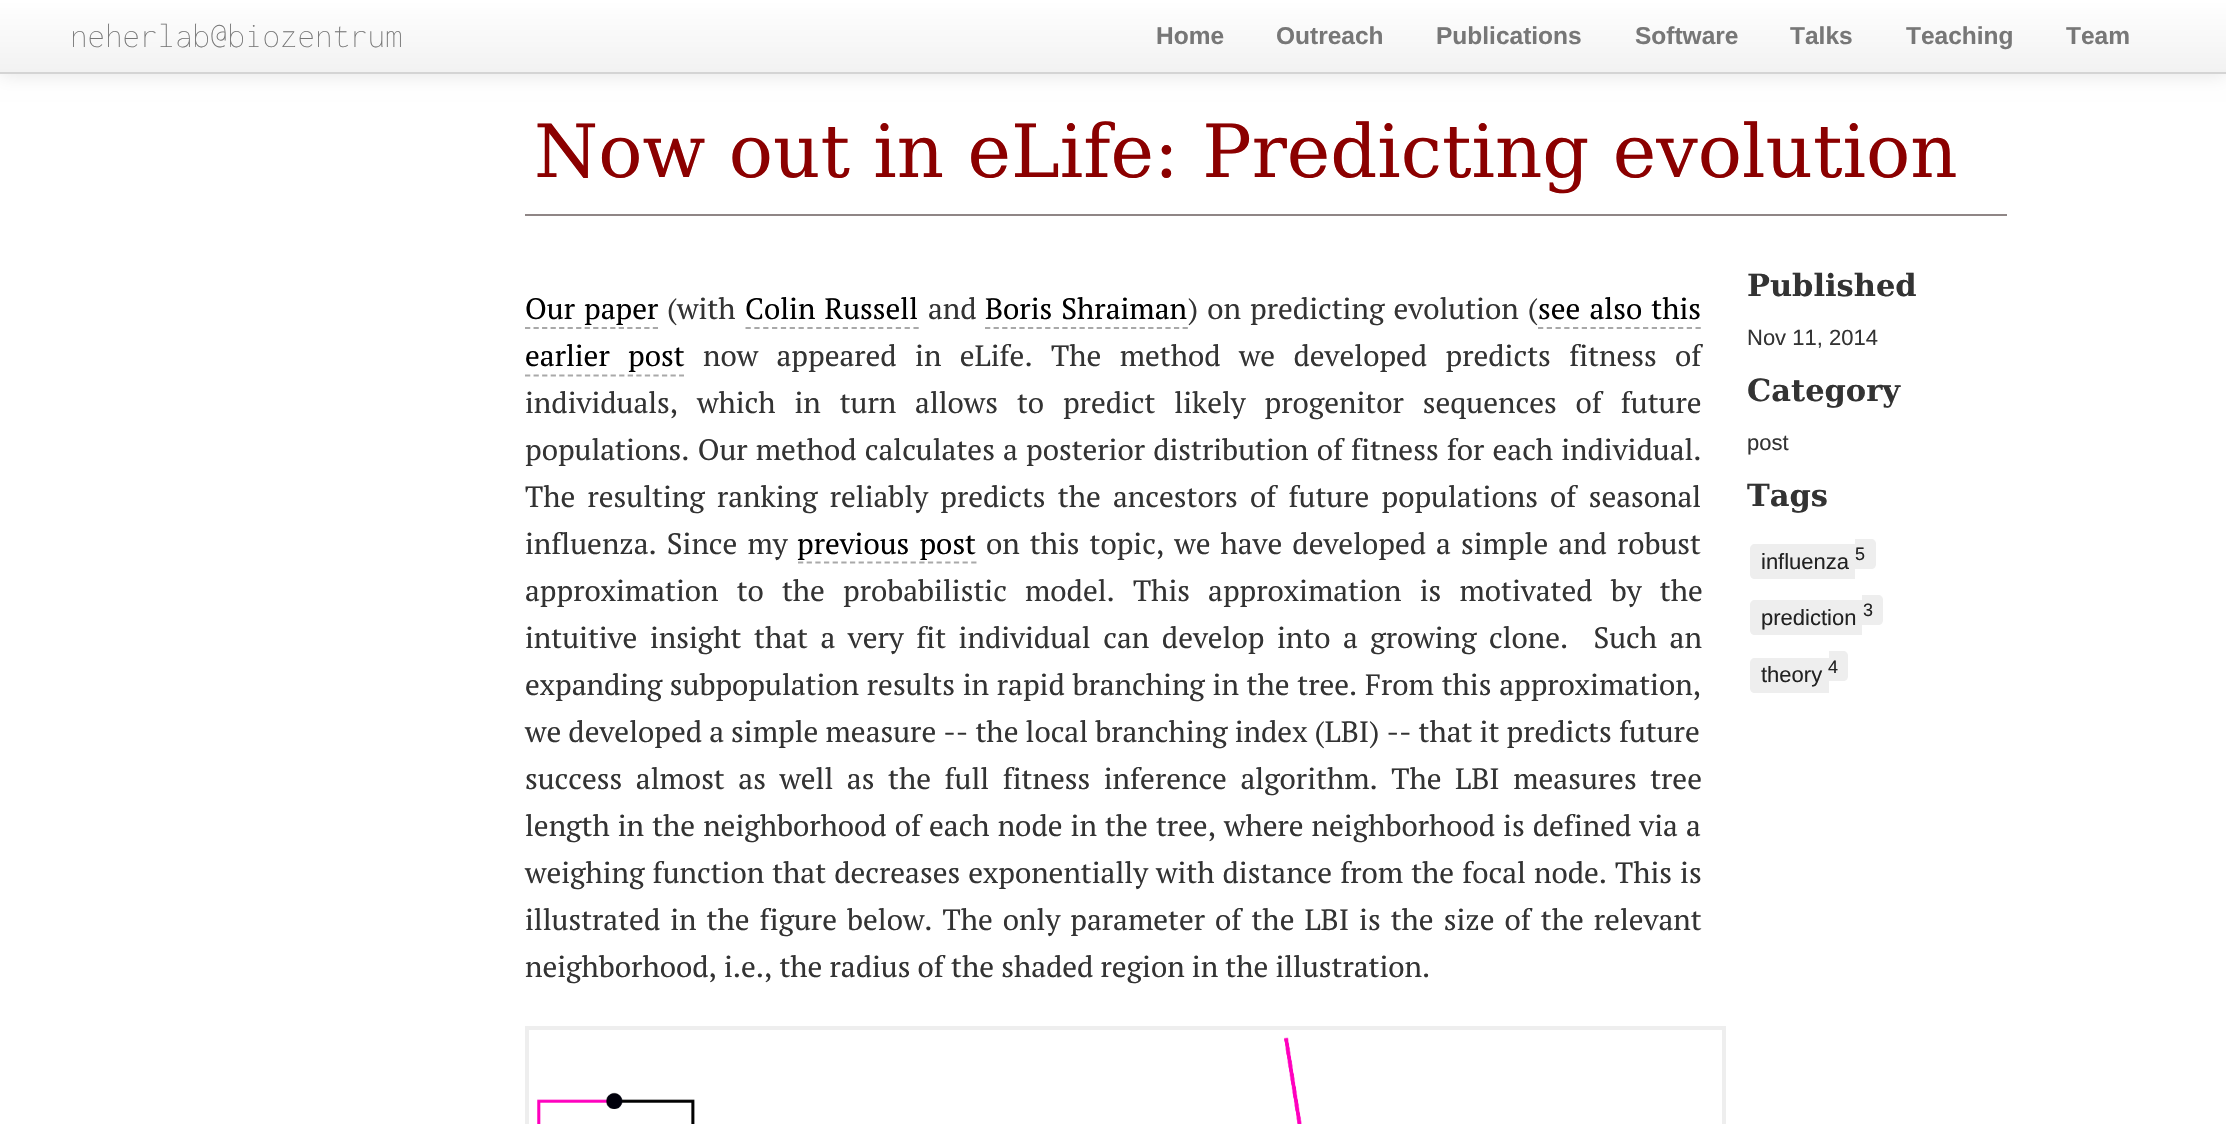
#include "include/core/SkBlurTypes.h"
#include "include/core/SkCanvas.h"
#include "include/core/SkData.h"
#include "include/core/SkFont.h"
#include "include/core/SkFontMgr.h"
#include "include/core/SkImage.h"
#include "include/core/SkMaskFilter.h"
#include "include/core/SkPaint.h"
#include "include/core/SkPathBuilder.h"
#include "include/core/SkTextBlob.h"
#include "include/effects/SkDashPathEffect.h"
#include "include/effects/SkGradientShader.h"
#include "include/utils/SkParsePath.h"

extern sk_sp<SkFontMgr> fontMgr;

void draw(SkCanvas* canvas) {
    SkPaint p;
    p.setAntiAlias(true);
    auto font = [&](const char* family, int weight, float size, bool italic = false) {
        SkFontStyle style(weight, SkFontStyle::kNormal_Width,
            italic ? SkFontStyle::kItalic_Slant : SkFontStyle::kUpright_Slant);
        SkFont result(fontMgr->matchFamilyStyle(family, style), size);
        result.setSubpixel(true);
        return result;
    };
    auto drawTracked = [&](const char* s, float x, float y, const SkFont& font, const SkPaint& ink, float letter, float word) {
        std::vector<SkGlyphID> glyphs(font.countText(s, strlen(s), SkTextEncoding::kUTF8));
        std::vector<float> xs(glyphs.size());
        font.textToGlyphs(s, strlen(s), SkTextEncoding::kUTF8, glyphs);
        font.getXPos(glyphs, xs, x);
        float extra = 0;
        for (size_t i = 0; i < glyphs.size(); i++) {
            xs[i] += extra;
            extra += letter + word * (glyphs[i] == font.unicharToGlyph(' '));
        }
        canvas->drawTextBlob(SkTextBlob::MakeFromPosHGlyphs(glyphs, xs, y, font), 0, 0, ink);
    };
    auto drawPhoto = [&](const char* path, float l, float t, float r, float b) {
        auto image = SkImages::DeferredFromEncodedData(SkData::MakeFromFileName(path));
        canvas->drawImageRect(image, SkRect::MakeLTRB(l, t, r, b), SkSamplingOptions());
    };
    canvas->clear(0xFFFFFFFF);
    p.setColor(0x1A000000);
    p.setMaskFilter(SkMaskFilter::MakeBlur(kNormal_SkBlurStyle, 9));
    canvas->drawRect(SkRect::MakeLTRB(0, 2, 2226, 75), p);
    p.setMaskFilter(nullptr);
    {
        const SkColor colors[] = {0xFFFFFFFF, 0xFFF2F2F2};
        const float stops[] = {0, 1};
        const SkPoint ends[] = {{1113, 0}, {1113, 72}};
        p.setShader(SkGradientShader::MakeLinear(ends, colors, stops, 2, SkTileMode::kClamp));
        p.setAlpha(255);
    }
    canvas->drawRect(SkRect::MakeLTRB(0, 0, 2226, 72), p);
    p.setShader(nullptr);
    p.setColor(0xFFD4D4D4);
    canvas->drawRect(SkRect::MakeLTRB(0, 72, 2226, 74), p);
    auto font1 = font("Inconsolata", 200, 35);
    p.setColor(0xFF777777);
    canvas->drawString("neherlab@biozentrum", 70, 47, font1, p);
    auto font2 = font("Liberation Sans", 700, 24.5f);
    {
        const struct { const char* s; float x, y; } items[] = {
            {"Home", 1156, 44},
            {"Outreach", 1276, 44},
            {"Publications", 1436, 44},
            {"Software", 1635, 44},
            {"Talks", 1790, 44},
            {"Teaching", 1906, 44},
            {"Team", 2066, 44},
        };
        for (auto [s, x, y] : items) {
            canvas->drawString(s, x, y, font2, p);
        }
    }
    p.setColor(0xFF8F8686);
    canvas->drawRect(SkRect::MakeLTRB(525, 214, 2007, 216), p);
    auto font3 = font("DejaVu Serif", 400, 73.5f);
    p.setColor(0xFF8B0000);
    canvas->drawString("Now out in eLife: Predicting evolution", 534, 177, font3, p);
    auto font4 = font("PT Serif", 400, 29.4f);
    p.setColor(0xFF000000);
    drawTracked("Our paper", 525, 319, font4, p, 0, 2);
    p.setStyle(SkPaint::kStroke_Style);
    p.setStrokeWidth(1.8f);
    p.setColor(0xFFA9A9A9);
    p.setPathEffect(SkDashPathEffect::Make({{5.25f, 3.27f}}, 0));
    canvas->drawPath(SkPathBuilder().moveTo(525, 328).lineTo(658, 328).detach(), p);
    p.setPathEffect(nullptr);
    p.setStyle(SkPaint::kFill_Style);
    p.setColor(0xFF333333);
    canvas->drawString("(with", 667, 319, font4, p);
    p.setColor(0xFF000000);
    drawTracked("Colin Russell", 745, 319, font4, p, 0, 2);
    p.setStyle(SkPaint::kStroke_Style);
    p.setColor(0xFFA9A9A9);
    p.setPathEffect(SkDashPathEffect::Make({{5.25f, 3.59f}}, 0));
    canvas->drawPath(SkPathBuilder().moveTo(745.5f, 328).lineTo(919, 328).detach(), p);
    p.setPathEffect(nullptr);
    p.setStyle(SkPaint::kFill_Style);
    p.setColor(0xFF333333);
    canvas->drawString("and", 928, 319, font4, p);
    p.setColor(0xFF000000);
    drawTracked("Boris Shraiman", 985, 319, font4, p, 0, 2);
    p.setStyle(SkPaint::kStroke_Style);
    p.setColor(0xFFA9A9A9);
    p.setPathEffect(SkDashPathEffect::Make({{5.25f, 3.34f}}, 0));
    canvas->drawPath(SkPathBuilder().moveTo(985, 328).lineTo(1188, 328).detach(), p);
    p.setPathEffect(nullptr);
    p.setStyle(SkPaint::kFill_Style);
    p.setColor(0xFF333333);
    drawTracked(") on predicting evolution (", 1188, 319, font4, p, 0, 2);
    p.setColor(0xFF000000);
    drawTracked("see also this", 1538, 319, font4, p, 0, 2);
    p.setStyle(SkPaint::kStroke_Style);
    p.setColor(0xFFA9A9A9);
    p.setPathEffect(SkDashPathEffect::Make({{5.25f, 3.5f}}, 0));
    canvas->drawPath(SkPathBuilder().moveTo(1538, 328).lineTo(1701, 328).detach(), p);
    p.setPathEffect(nullptr);
    p.setStyle(SkPaint::kFill_Style);
    p.setColor(0xFF000000);
    drawTracked("earlier post", 525, 366, font4, p, 0, 11.25f);
    p.setStyle(SkPaint::kStroke_Style);
    p.setColor(0xFFA9A9A9);
    p.setPathEffect(SkDashPathEffect::Make({{5.25f, 3.31f}}, 0));
    canvas->drawPath(SkPathBuilder().moveTo(525, 375.5f).lineTo(684, 375.5f).detach(), p);
    p.setPathEffect(nullptr);
    p.setStyle(SkPaint::kFill_Style);
    p.setColor(0xFF333333);
    drawTracked("now appeared in eLife. The method we developed predicts fitness of", 703, 366, font4, p, 0, 11.25f);
    drawTracked("individuals, which in turn allows to predict likely progenitor sequences of future", 525, 413, font4, p, 0, 11.75f);
    drawTracked("populations. Our method calculates a posterior distribution of fitness for each individual.", 525, 460, font4, p, 0, 1);
    drawTracked("The resulting ranking reliably predicts the ancestors of future populations of seasonal", 525, 507, font4, p, 0, 5.1f);
    drawTracked("influenza. Since my", 525, 554, font4, p, 0, 2.9f);
    p.setColor(0xFF000000);
    drawTracked("previous post", 797, 554, font4, p, 0, 3);
    p.setStyle(SkPaint::kStroke_Style);
    p.setColor(0xFFA9A9A9);
    p.setPathEffect(SkDashPathEffect::Make({{5.25f, 3.41f}}, 0));
    canvas->drawPath(SkPathBuilder().moveTo(798, 562.5f).lineTo(976.5f, 562.5f).detach(), p);
    p.setPathEffect(nullptr);
    p.setStyle(SkPaint::kFill_Style);
    p.setColor(0xFF333333);
    drawTracked("on this topic, we have developed a simple and robust", 986, 554, font4, p, 0, 2.9f);
    drawTracked("approximation to the probabilistic model. This approximation is motivated by the", 525, 601, font4, p, 0, 11);
    drawTracked("intuitive insight that a very fit individual can develop into a growing clone.  Such an", 525, 648, font4, p, 0, 5.4f);
    drawTracked("expanding subpopulation results in rapid branching in the tree. From this approximation,", 525, 695, font4, p, 0, 0.6f);
    canvas->drawString("we developed a simple measure -- the local branching index (LBI) -- that it predicts future", 525, 742, font4, p);
    drawTracked("success almost as well as the full fitness inference algorithm. The LBI measures tree", 525, 789, font4, p, 0, 6.4f);
    drawTracked("length in the neighborhood of each node in the tree, where neighborhood is defined via a", 525, 836, font4, p, 0, 0.9f);
    drawTracked("weighing function that decreases exponentially with distance from the focal node. This is", 525, 883, font4, p, 0, 0.9f);
    drawTracked("illustrated in the figure below. The only parameter of the LBI is the size of the relevant", 525, 930, font4, p, 0, 2.9f);
    canvas->drawString("neighborhood, i.e., the radius of the shaded region in the illustration.", 525, 977, font4, p);
    p.setStyle(SkPaint::kStroke_Style);
    p.setStrokeWidth(4);
    p.setColor(0xFFEEEEEE);
    canvas->drawRect(SkRect::MakeLTRB(527, 1028, 1724, 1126), p);
    drawPhoto("media/1.png", 537, 1037, 1302, 1124);
    auto font5 = font("DejaVu Serif", 700, 30.5f);
    p.setStyle(SkPaint::kFill_Style);
    p.setColor(0xFF333333);
    canvas->drawString("Published", 1747, 296, font5, p);
    auto font6 = font("Liberation Sans", 400, 22);
    canvas->drawString("Nov 11, 2014", 1747, 345, font6, p);
    canvas->drawString("Category", 1747, 401, font5, p);
    canvas->drawString("post", 1747, 450, font6, p);
    canvas->drawString("Tags", 1747, 506, font5, p);
    p.setColor(0xFFEEEEEE);
    canvas->drawPath(SkPathBuilder().moveTo(1755, 544).lineTo(1855, 544).lineTo(1855, 579).lineTo(1755, 579).cubicTo(1752, 579, 1750, 577, 1750, 574).lineTo(1750, 549).cubicTo(1750, 546, 1752, 544, 1755, 544).close().detach(), p);
    p.setColor(0xFF222222);
    canvas->drawString("influenza", 1761, 569, font6, p);
    p.setColor(0xFFEEEEEE);
    canvas->drawPath(SkPathBuilder().moveTo(1855, 539).lineTo(1871, 539).cubicTo(1874, 539, 1876, 541, 1876, 544).lineTo(1876, 564).cubicTo(1876, 567, 1874, 569, 1871, 569).lineTo(1855, 569).close().detach(), p);
    auto font7 = font("Liberation Sans", 400, 18);
    p.setColor(0xFF222222);
    canvas->drawString("5", 1855, 560, font7, p);
    p.setColor(0xFFEEEEEE);
    canvas->drawPath(SkPathBuilder().moveTo(1755, 600).lineTo(1862, 600).lineTo(1862, 635).lineTo(1755, 635).cubicTo(1752, 635, 1750, 633, 1750, 630).lineTo(1750, 605).cubicTo(1750, 602, 1752, 600, 1755, 600).close().detach(), p);
    p.setColor(0xFF222222);
    canvas->drawString("prediction", 1761, 625, font6, p);
    p.setColor(0xFFEEEEEE);
    canvas->drawPath(SkPathBuilder().moveTo(1862, 595).lineTo(1878, 595).cubicTo(1881, 595, 1883, 597, 1883, 600).lineTo(1883, 620).cubicTo(1883, 623, 1881, 625, 1878, 625).lineTo(1862, 625).close().detach(), p);
    p.setColor(0xFF222222);
    canvas->drawString("3", 1863, 616, font7, p);
    p.setColor(0xFFEEEEEE);
    canvas->drawPath(SkPathBuilder().moveTo(1755, 658).lineTo(1829, 658).lineTo(1829, 693).lineTo(1755, 693).cubicTo(1752, 693, 1750, 691, 1750, 688).lineTo(1750, 663).cubicTo(1750, 660, 1752, 658, 1755, 658).close().detach(), p);
    p.setColor(0xFF222222);
    canvas->drawString("theory", 1761, 682, font6, p);
    p.setColor(0xFFEEEEEE);
    canvas->drawPath(SkPathBuilder().moveTo(1829, 651).lineTo(1843, 651).cubicTo(1846, 651, 1848, 653, 1848, 656).lineTo(1848, 676).cubicTo(1848, 679, 1846, 681, 1843, 681).lineTo(1829, 681).close().detach(), p);
    p.setColor(0xFF222222);
    canvas->drawString("4", 1828, 673, font7, p);
}
